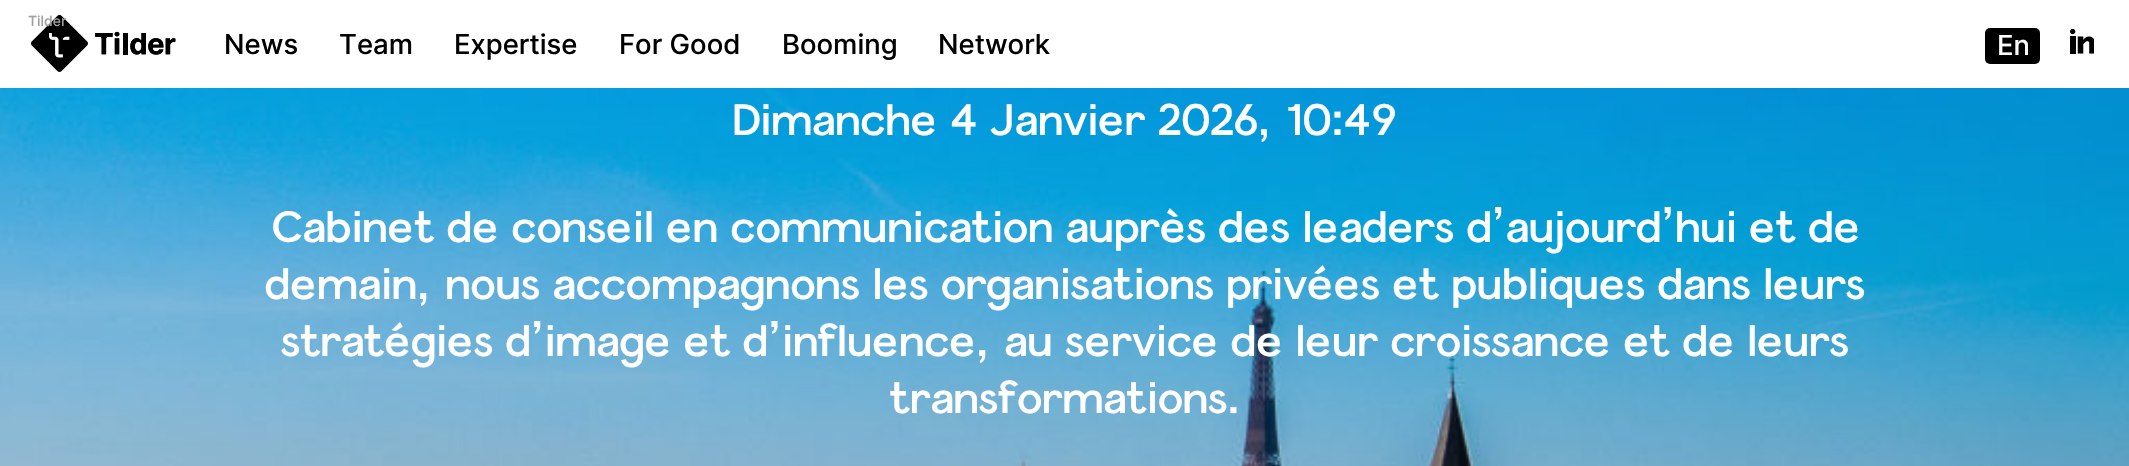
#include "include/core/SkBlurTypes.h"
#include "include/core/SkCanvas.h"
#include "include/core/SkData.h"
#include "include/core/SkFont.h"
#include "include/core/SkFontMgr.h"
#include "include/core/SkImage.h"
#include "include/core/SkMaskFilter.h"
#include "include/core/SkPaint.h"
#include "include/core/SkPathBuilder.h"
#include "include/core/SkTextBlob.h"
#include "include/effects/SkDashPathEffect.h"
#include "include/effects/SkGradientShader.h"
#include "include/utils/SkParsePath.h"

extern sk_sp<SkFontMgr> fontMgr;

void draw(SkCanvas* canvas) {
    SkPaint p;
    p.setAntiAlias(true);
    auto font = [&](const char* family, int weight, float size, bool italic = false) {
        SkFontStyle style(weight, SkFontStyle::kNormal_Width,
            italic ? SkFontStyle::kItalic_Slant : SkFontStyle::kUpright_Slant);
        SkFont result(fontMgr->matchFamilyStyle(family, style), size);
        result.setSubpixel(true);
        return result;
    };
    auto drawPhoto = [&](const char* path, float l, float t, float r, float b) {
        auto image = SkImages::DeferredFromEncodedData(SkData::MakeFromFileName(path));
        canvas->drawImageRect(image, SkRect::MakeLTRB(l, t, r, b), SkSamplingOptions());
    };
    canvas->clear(0xFFFFFFFF);
    drawPhoto("media/1.png", 31, 14, 176, 72);
    auto font1 = font("Inter", 500, 14);
    p.setColor(0xFFA0A0A0);
    canvas->drawString("Tilder", 28, 26, font1, p);
    auto font2 = font("Inter", 500, 27.5f);
    p.setColor(0xFF000000);
    {
        const struct { const char* s; float x, y; } items[] = {
            {"News", 224, 54},
            {"Team", 339, 54},
            {"Expertise", 454, 54},
            {"For Good", 619, 54},
            {"Booming", 782, 54},
            {"Network", 938, 54},
        };
        for (auto [s, x, y] : items) {
            canvas->drawString(s, x, y, font2, p);
        }
    }
    canvas->drawRoundRect(SkRect::MakeLTRB(1985, 28, 2040, 64), 5, 5, p);
    p.setColor(0xFFFFFFFF);
    canvas->drawString("En", 1997, 55, font2, p);
    drawPhoto("media/2.png", 2070, 29, 2094, 54);
    drawPhoto("media/3.png", 0, 88, 2129, 466);
    auto font3 = font("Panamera", 400, 44.05f);
    {
        const struct { const char* s; float x, y; } items[] = {
            {"Dimanche 4 Janvier 2026, 10:49", 733, 135},
            {"Cabinet de conseil en communication auprès des leaders d’aujourd’hui et de", 271, 242},
            {"demain, nous accompagnons les organisations privées et publiques dans leurs", 265, 299},
            {"stratégies d’image et d’influence, au service de leur croissance et de leurs", 281, 356},
            {"transformations.", 890, 413},
        };
        for (auto [s, x, y] : items) {
            canvas->drawString(s, x, y, font3, p);
        }
    }
}
